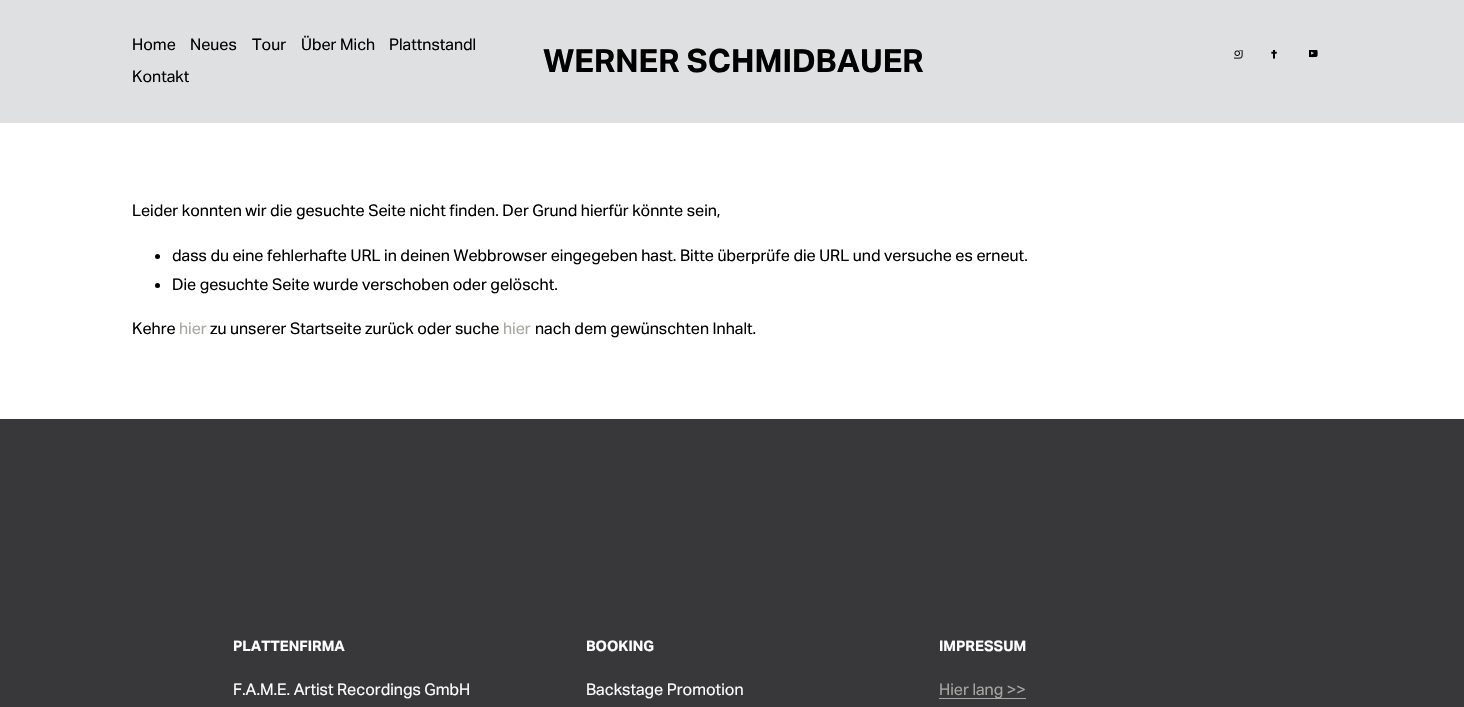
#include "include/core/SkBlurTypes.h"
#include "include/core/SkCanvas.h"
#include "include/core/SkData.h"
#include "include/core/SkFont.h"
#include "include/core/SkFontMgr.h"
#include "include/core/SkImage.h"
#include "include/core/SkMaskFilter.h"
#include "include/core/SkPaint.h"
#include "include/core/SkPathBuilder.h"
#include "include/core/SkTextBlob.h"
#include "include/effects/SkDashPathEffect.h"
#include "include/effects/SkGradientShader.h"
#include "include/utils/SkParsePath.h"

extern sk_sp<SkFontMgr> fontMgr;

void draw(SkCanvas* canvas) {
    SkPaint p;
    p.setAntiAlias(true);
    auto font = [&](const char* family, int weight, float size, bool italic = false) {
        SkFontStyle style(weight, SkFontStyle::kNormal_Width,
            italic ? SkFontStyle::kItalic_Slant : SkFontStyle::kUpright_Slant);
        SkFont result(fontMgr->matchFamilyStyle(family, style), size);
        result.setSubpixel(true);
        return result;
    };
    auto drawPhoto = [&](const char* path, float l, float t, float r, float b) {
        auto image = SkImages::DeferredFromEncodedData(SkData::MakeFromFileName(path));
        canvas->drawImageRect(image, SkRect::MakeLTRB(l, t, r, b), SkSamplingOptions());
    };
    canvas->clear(0xFFFFFFFF);
    p.setColor(0xFFDFE0E1);
    canvas->drawRect(SkRect::MakeLTRB(0, 0, 1464, 123), p);
    auto font1 = font("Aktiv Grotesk", 400, 16);
    p.setColor(0xFF000000);
    {
        const struct { const char* s; float x, y; } items[] = {
            {"Home", 132, 50},
            {"Neues", 190, 50},
            {"Tour", 252, 50},
            {"Über Mich", 301, 50},
            {"Plattnstandl", 389, 50},
            {"Kontakt", 132, 82},
        };
        for (auto [s, x, y] : items) {
            canvas->drawString(s, x, y, font1, p);
        }
    }
    auto font2 = font("Aktiv Grotesk", 700, 32);
    canvas->drawString("WERNER SCHMIDBAUER", 543, 72, font2, p);
    drawPhoto("media/1.png", 1234, 50, 1243, 59);
    drawPhoto("media/2.png", 1271, 50, 1277, 59);
    drawPhoto("media/3.png", 1309, 50, 1318, 58);
    canvas->drawString("Leider konnten wir die gesuchte Seite nicht finden. Der Grund hierfür könnte sein,", 132, 216, font1, p);
    canvas->drawCircle(157.5f, 256.5f, 2.5f, p);
    canvas->drawString("dass du eine fehlerhafte URL in deinen Webbrowser eingegeben hast. Bitte überprüfe die URL und versuche es erneut.", 172, 261, font1, p);
    canvas->drawCircle(157.5f, 285.5f, 2.5f, p);
    canvas->drawString("Die gesuchte Seite wurde verschoben oder gelöscht.", 172, 290, font1, p);
    canvas->drawString("Kehre", 132, 334, font1, p);
    p.setColor(0xFFA8A6A1);
    canvas->drawString("hier", 179, 334, font1, p);
    p.setColor(0xFF000000);
    canvas->drawString("zu unserer Startseite zurück oder suche", 210, 334, font1, p);
    p.setColor(0xFFA8A6A1);
    canvas->drawString("hier", 503, 334, font1, p);
    p.setColor(0xFF000000);
    canvas->drawString("nach dem gewünschten Inhalt.", 535, 334, font1, p);
    p.setColor(0xFF38383B);
    canvas->drawRect(SkRect::MakeLTRB(0, 419, 1464, 707), p);
    auto font3 = font("Aktiv Grotesk", 700, 14.5f);
    p.setColor(0xFFFFFFFF);
    canvas->drawString("PLATTENFIRMA", 233, 651, font3, p);
    canvas->drawString("F.A.M.E. Artist Recordings GmbH", 233, 695, font1, p);
    canvas->drawString("BOOKING", 586, 651, font3, p);
    canvas->drawString("Backstage Promotion", 586, 695, font1, p);
    canvas->drawString("IMPRESSUM", 939, 651, font3, p);
    p.setColor(0xFFA8A6A1);
    canvas->drawRect(SkRect::MakeLTRB(939, 698, 1026, 699), p);
    canvas->drawString("Hier lang >>", 939, 695, font1, p);
}
